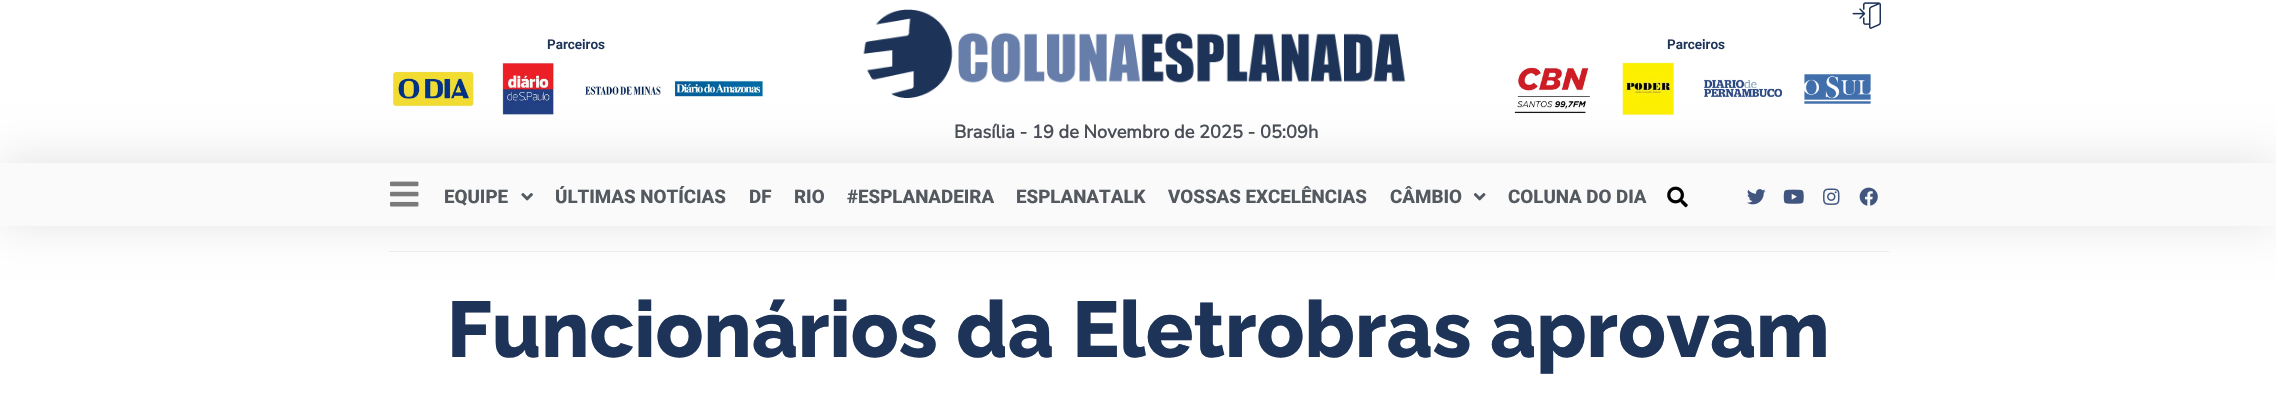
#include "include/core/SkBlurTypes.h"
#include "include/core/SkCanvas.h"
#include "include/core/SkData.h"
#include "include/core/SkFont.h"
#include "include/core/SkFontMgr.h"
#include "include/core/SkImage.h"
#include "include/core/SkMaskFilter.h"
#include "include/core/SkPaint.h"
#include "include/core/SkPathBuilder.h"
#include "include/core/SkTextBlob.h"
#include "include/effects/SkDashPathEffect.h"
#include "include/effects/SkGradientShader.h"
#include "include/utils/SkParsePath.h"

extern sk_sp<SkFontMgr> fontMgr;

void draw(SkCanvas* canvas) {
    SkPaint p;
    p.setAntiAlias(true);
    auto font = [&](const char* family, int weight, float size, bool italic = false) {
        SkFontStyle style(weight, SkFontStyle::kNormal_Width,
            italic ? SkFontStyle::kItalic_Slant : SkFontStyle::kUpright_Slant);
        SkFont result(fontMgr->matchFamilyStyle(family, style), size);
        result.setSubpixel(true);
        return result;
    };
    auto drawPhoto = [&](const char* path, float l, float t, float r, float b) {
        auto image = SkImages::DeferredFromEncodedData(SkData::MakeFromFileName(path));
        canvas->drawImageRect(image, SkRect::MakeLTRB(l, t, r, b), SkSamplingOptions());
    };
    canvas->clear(0xFFFFFFFF);
    auto font1 = font("Roboto", 600, 13.5f);
    p.setColor(0xFF1D3358);
    canvas->drawString("Parceiros", 547, 49, font1, p);
    drawPhoto("media/1.png", 392, 71, 474, 107);
    drawPhoto("media/2.png", 502, 61, 555, 116);
    drawPhoto("media/3.png", 585, 85, 662, 96);
    drawPhoto("media/4.png", 674, 80, 763, 101);
    drawPhoto("media/5.png", 1852, 2, 1881, 29);
    canvas->drawString("Parceiros", 1667, 49, font1, p);
    drawPhoto("media/6.png", 1514, 66, 1590, 114);
    drawPhoto("media/7.png", 1622, 62, 1675, 116);
    drawPhoto("media/8.png", 1704, 79, 1782, 97);
    drawPhoto("media/9.png", 1804, 74, 1871, 104);
    drawPhoto("media/10.png", 863, 9, 1406, 98);
    auto font2 = font("Nunito Sans", 700, 18.25f);
    p.setColor(0xFF4B4F58);
    canvas->drawString("Brasília - 19 de Novembro de 2025 - 05:09h", 954, 138, font2, p);
    p.setColor(0xFFEFEFEF);
    canvas->drawRect(SkRect::MakeLTRB(389, 251, 1889, 252), p);
    p.setColor(0x1C010101);
    p.setMaskFilter(SkMaskFilter::MakeBlur(kNormal_SkBlurStyle, 24));
    canvas->drawRect(SkRect::MakeLTRB(0, 160, 2276, 224), p);
    p.setMaskFilter(nullptr);
    p.setColor(0xFFFAFAFA);
    canvas->drawRect(SkRect::MakeLTRB(0, 163, 2276, 226), p);
    drawPhoto("media/11.png", 390, 181, 419, 207);
    auto font3 = font("Roboto", 800, 18.75f);
    p.setColor(0xFF54595F);
    canvas->drawString("EQUIPE", 444, 203, font3, p);
    drawPhoto("media/12.png", 521, 193, 533, 201);
    {
        const struct { const char* s; float x, y; } items[] = {
            {"ÚLTIMAS NOTÍCIAS", 555, 203},
            {"DF", 749, 203},
            {"RIO", 794, 203},
            {"#ESPLANADEIRA", 847, 203},
            {"ESPLANATALK", 1016, 203},
            {"VOSSAS EXCELÊNCIAS", 1168, 203},
            {"CÂMBIO", 1390, 203},
        };
        for (auto [s, x, y] : items) {
            canvas->drawString(s, x, y, font3, p);
        }
    }
    drawPhoto("media/13.png", 1473, 193, 1486, 201);
    canvas->drawString("COLUNA DO DIA", 1508, 203, font3, p);
    drawPhoto("media/14.png", 1667, 186, 1688, 208);
    drawPhoto("media/15.png", 1747, 189, 1766, 205);
    drawPhoto("media/16.png", 1783, 189, 1804, 204);
    drawPhoto("media/17.png", 1823, 188, 1840, 205);
    drawPhoto("media/18.png", 1859, 187, 1878, 206);
    auto font4 = font("Raleway", 800, 78.75f);
    p.setColor(0xFF1D3358);
    canvas->drawString("Funcionários da Eletrobras aprovam", 447, 357, font4, p);
}
